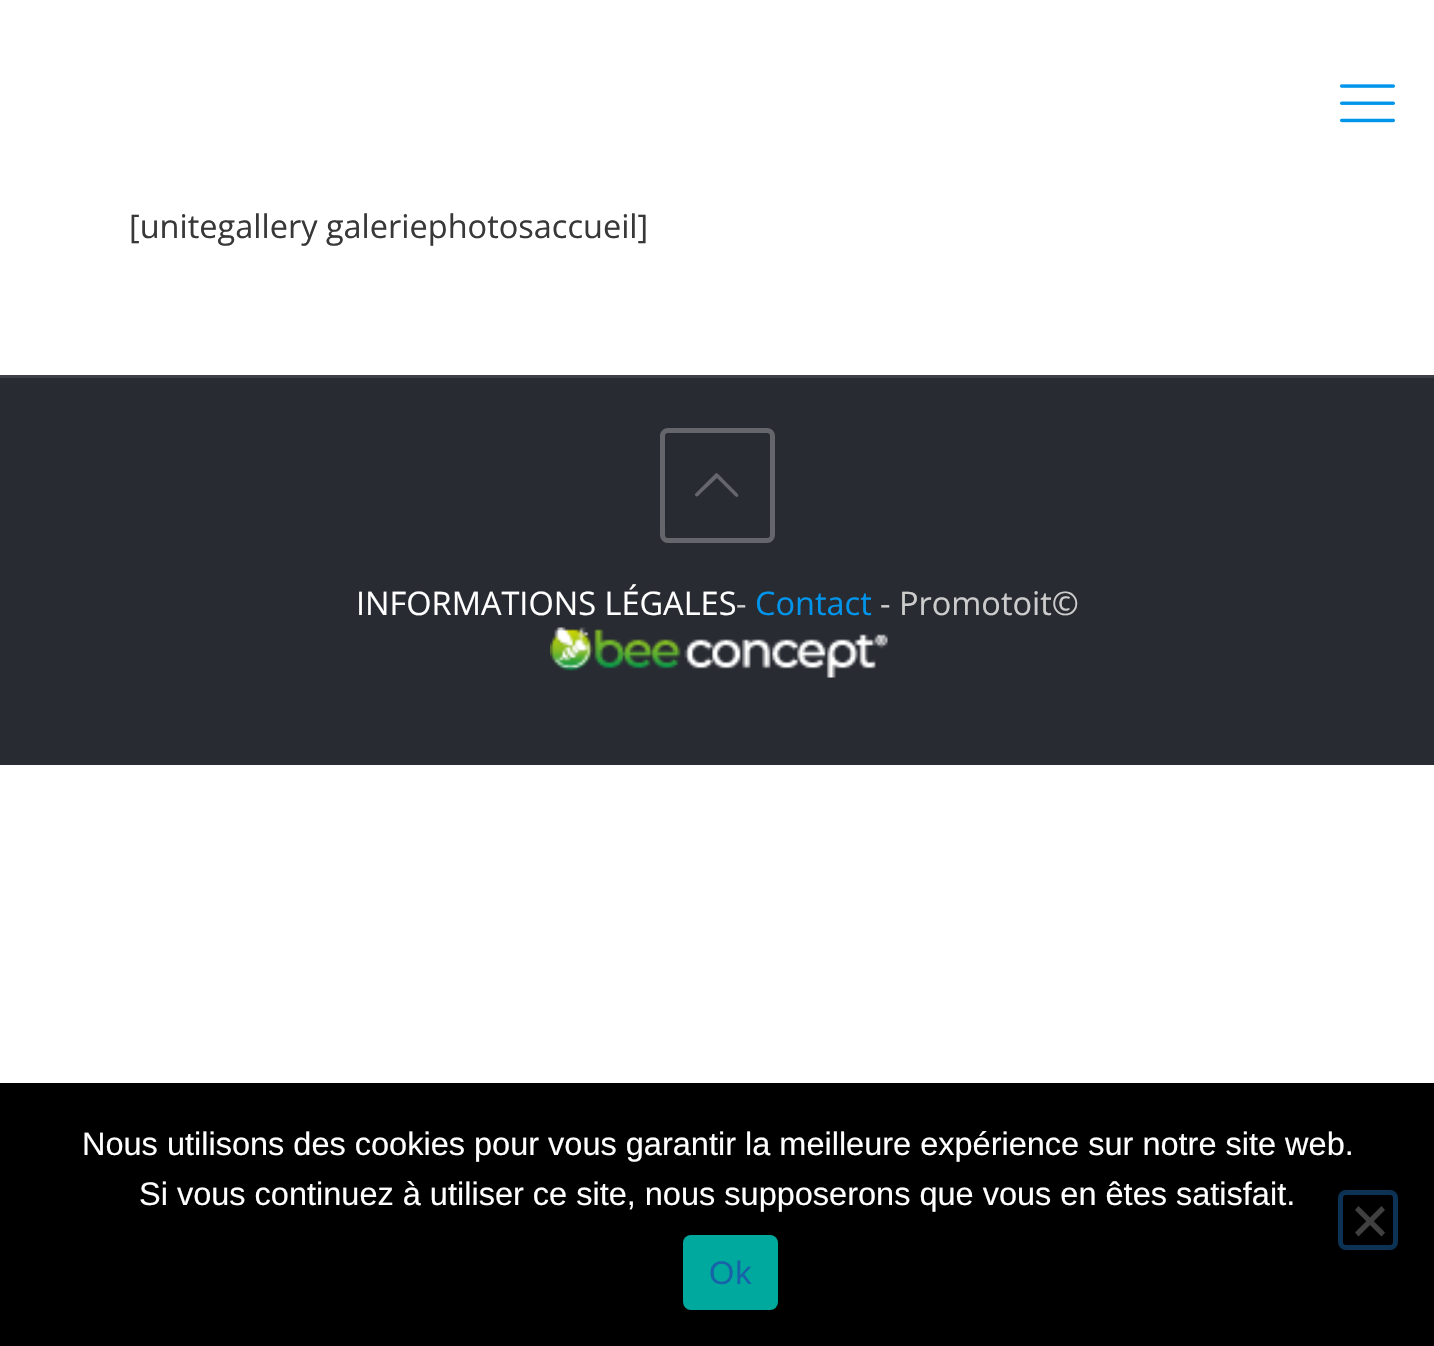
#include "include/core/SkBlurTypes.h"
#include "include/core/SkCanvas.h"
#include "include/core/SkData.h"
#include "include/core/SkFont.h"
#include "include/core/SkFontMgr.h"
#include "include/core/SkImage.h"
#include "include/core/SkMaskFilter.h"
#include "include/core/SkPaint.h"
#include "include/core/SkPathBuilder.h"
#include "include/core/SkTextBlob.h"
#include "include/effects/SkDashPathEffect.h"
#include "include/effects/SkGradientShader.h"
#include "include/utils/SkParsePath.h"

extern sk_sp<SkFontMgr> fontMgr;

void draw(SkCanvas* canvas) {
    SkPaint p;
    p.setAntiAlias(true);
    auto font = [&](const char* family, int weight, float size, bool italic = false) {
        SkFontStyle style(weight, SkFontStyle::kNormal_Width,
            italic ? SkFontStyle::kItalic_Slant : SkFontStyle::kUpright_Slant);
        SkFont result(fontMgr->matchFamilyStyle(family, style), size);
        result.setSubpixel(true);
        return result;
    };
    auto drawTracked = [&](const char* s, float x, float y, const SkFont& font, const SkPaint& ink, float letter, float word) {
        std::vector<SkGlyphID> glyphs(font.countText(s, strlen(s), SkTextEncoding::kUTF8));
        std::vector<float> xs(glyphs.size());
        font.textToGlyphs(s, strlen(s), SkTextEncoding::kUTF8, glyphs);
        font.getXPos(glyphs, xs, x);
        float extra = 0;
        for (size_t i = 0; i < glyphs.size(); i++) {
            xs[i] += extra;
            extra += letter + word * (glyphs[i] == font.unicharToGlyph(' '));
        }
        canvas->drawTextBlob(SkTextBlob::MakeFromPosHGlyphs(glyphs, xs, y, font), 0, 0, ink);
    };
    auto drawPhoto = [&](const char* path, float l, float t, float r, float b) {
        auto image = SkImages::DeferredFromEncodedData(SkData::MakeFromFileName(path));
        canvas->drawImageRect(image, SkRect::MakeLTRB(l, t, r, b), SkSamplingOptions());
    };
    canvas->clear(0xFFFFFFFF);
    drawPhoto("media/1.png", 1340, 84, 1395, 123);
    auto font1 = font("Open Sans", 400, 32.5f);
    p.setColor(0xFF383838);
    canvas->drawString("[unitegallery galeriephotosaccueil]", 129, 238, font1, p);
    p.setColor(0xFF292B33);
    canvas->drawRect(SkRect::MakeLTRB(0, 378, 1434, 765), p);
    p.setColor(0xFF3E4047);
    canvas->drawRect(SkRect::MakeLTRB(0, 375, 1434, 378), p);
    p.setStyle(SkPaint::kStroke_Style);
    p.setStrokeWidth(5);
    p.setColor(0xFF65666C);
    canvas->drawRoundRect(SkRect::MakeLTRB(662.5f, 430.5f, 772.5f, 540.5f), 5.5f, 5.5f, p);
    p.setStyle(SkPaint::kFill_Style);
    canvas->drawPath(SkPathBuilder().moveTo(735, 496).lineTo(717, 478).lineTo(701, 493).cubicTo(700, 494, 697, 499, 695, 495).lineTo(695, 494).lineTo(716, 473).cubicTo(718, 473, 723, 479, 724, 480).lineTo(734, 490).cubicTo(735, 491, 741, 496, 737, 497).close().detach(), p);
    p.setColor(0xFFFFFFFF);
    canvas->drawString("INFORMATIONS LÉGALES", 356, 615, font1, p);
    p.setColor(0xFFCCCCCC);
    canvas->drawString("-", 736, 615, font1, p);
    p.setColor(0xFF0095EB);
    canvas->drawString("Contact", 755, 615, font1, p);
    p.setColor(0xFFCCCCCC);
    canvas->drawString("- Promotoit©", 880, 615, font1, p);
    drawPhoto("media/2.png", 550, 627, 888, 678);
    p.setColor(0xFF000000);
    canvas->drawRect(SkRect::MakeLTRB(0, 1083, 1434, 1346), p);
    auto font2 = font("Liberation Sans", 400, 32.5f);
    p.setColor(0xFFFFFFFF);
    canvas->drawString("Nous utilisons des cookies pour vous garantir la meilleure expérience sur notre site web.", 82, 1155, font2, p);
    canvas->drawString("Si vous continuez à utiliser ce site, nous supposerons que vous en êtes satisfait.", 139, 1205, font2, p);
    p.setStyle(SkPaint::kStroke_Style);
    p.setColor(0xFF0C3255);
    canvas->drawRoundRect(SkRect::MakeLTRB(1340.5f, 1192.5f, 1395.5f, 1247.5f), 5.5f, 5.5f, p);
    p.setStyle(SkPaint::kFill_Style);
    p.setColor(0xFF404040);
    canvas->drawPath(SkPathBuilder().moveTo(1381.5f, 1206).lineTo(1385, 1210).lineTo(1358.5f, 1236.5f).lineTo(1355, 1232.5f).close().detach(), p);
    canvas->drawPath(SkPathBuilder().moveTo(1355, 1210).lineTo(1358.5f, 1206).lineTo(1385, 1232.5f).lineTo(1381.5f, 1236.5f).close().detach(), p);
    p.setColor(0xFF00A99D);
    canvas->drawRoundRect(SkRect::MakeLTRB(683, 1235, 778, 1310), 8, 8, p);
    p.setColor(0xFF1763A9);
    drawTracked("Ok", 709, 1284, font2, p, 1, 0);
}
